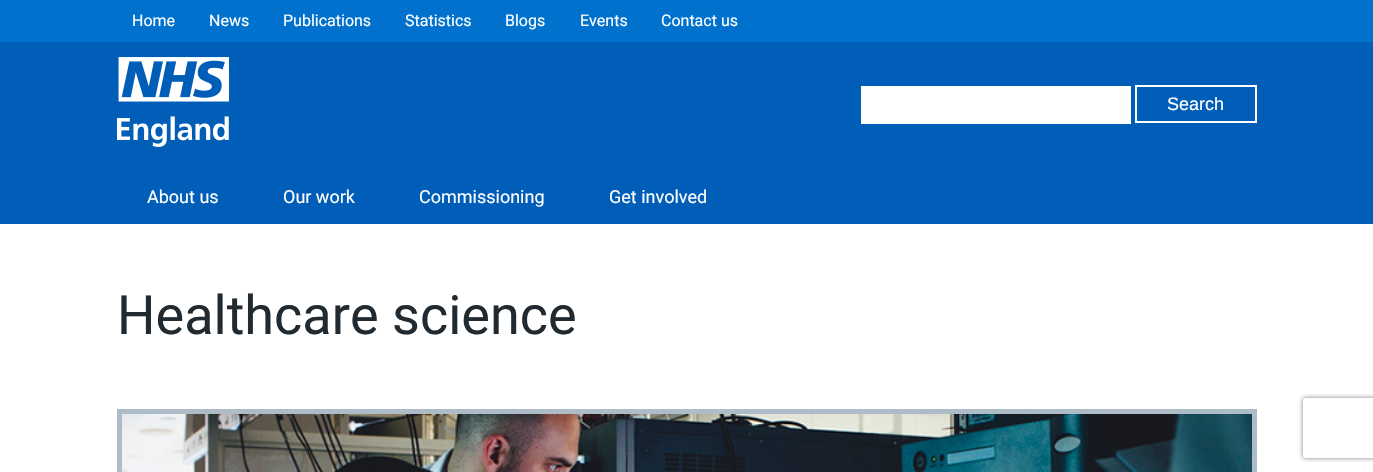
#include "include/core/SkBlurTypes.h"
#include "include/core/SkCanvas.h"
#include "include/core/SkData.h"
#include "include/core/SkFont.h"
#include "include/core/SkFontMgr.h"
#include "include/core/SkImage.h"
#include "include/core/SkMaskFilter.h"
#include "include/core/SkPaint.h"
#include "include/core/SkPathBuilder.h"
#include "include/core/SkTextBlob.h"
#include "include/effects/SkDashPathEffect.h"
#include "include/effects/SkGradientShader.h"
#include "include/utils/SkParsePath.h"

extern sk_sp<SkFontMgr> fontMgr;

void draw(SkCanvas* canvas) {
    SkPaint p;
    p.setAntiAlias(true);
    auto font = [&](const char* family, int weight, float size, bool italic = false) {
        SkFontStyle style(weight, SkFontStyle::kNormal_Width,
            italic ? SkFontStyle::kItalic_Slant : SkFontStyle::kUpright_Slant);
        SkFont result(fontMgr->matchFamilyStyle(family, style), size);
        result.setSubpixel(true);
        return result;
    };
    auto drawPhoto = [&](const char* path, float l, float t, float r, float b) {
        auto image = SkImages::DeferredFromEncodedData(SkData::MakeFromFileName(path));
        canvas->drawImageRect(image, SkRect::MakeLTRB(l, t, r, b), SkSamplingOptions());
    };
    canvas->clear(0xFFFFFFFF);
    p.setColor(0xFF0072CE);
    canvas->drawRect(SkRect::MakeLTRB(0, 0, 1373, 42), p);
    auto font1 = font("Roboto", 400, 16);
    p.setColor(0xFFFFFFFF);
    {
        const struct { const char* s; float x, y; } items[] = {
            {"Home", 132, 26},
            {"News", 209, 26},
            {"Publications", 283, 26},
            {"Statistics", 405, 26},
            {"Blogs", 505, 26},
            {"Events", 580, 26},
            {"Contact us", 661, 26},
        };
        for (auto [s, x, y] : items) {
            canvas->drawString(s, x, y, font1, p);
        }
    }
    p.setColor(0xFF005EB8);
    canvas->drawRect(SkRect::MakeLTRB(0, 42, 1373, 224), p);
    drawPhoto("media/1.png", 117, 57, 229, 147);
    p.setColor(0xFFFFFFFF);
    canvas->drawRect(SkRect::MakeLTRB(861, 86, 1131, 124), p);
    p.setStyle(SkPaint::kStroke_Style);
    p.setStrokeWidth(2);
    canvas->drawRect(SkRect::MakeLTRB(1136, 86, 1256, 122), p);
    auto font2 = font("Liberation Sans", 400, 18);
    p.setStyle(SkPaint::kFill_Style);
    canvas->drawString("Search", 1167, 110, font2, p);
    auto font3 = font("Roboto", 400, 18);
    {
        const struct { const char* s; float x, y; } items[] = {
            {"About us", 147, 203},
            {"Our work", 283, 203},
            {"Commissioning", 419, 203},
            {"Get involved", 609, 203},
        };
        for (auto [s, x, y] : items) {
            canvas->drawString(s, x, y, font3, p);
        }
    }
    auto font4 = font("Roboto", 400, 54);
    p.setColor(0xFF202A30);
    canvas->drawString("Healthcare science", 117, 334, font4, p);
    p.setStyle(SkPaint::kStroke_Style);
    p.setStrokeWidth(5);
    p.setColor(0xFFADBCC7);
    canvas->drawRect(SkRect::MakeLTRB(119.5f, 411.5f, 1254.5f, 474.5f), p);
    drawPhoto("media/2.png", 122, 414, 1252, 472);
    canvas->save();
    canvas->clipPath(SkPathBuilder(SkPathFillType::kEvenOdd).moveTo(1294, 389).lineTo(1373, 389).lineTo(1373, 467).lineTo(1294, 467).close().moveTo(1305, 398).lineTo(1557, 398).cubicTo(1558, 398, 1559, 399, 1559, 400).lineTo(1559, 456).cubicTo(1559, 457, 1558, 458, 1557, 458).lineTo(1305, 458).cubicTo(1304, 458, 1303, 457, 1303, 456).lineTo(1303, 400).cubicTo(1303, 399, 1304, 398, 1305, 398).close().detach(), true);
    p.setStyle(SkPaint::kFill_Style);
    p.setColor(0xFF808080);
    p.setMaskFilter(SkMaskFilter::MakeBlur(kNormal_SkBlurStyle, 2.5f));
    canvas->drawRoundRect(SkRect::MakeLTRB(1303, 398, 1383, 458), 2, 2, p);
    p.setMaskFilter(nullptr);
    canvas->restore();
}
